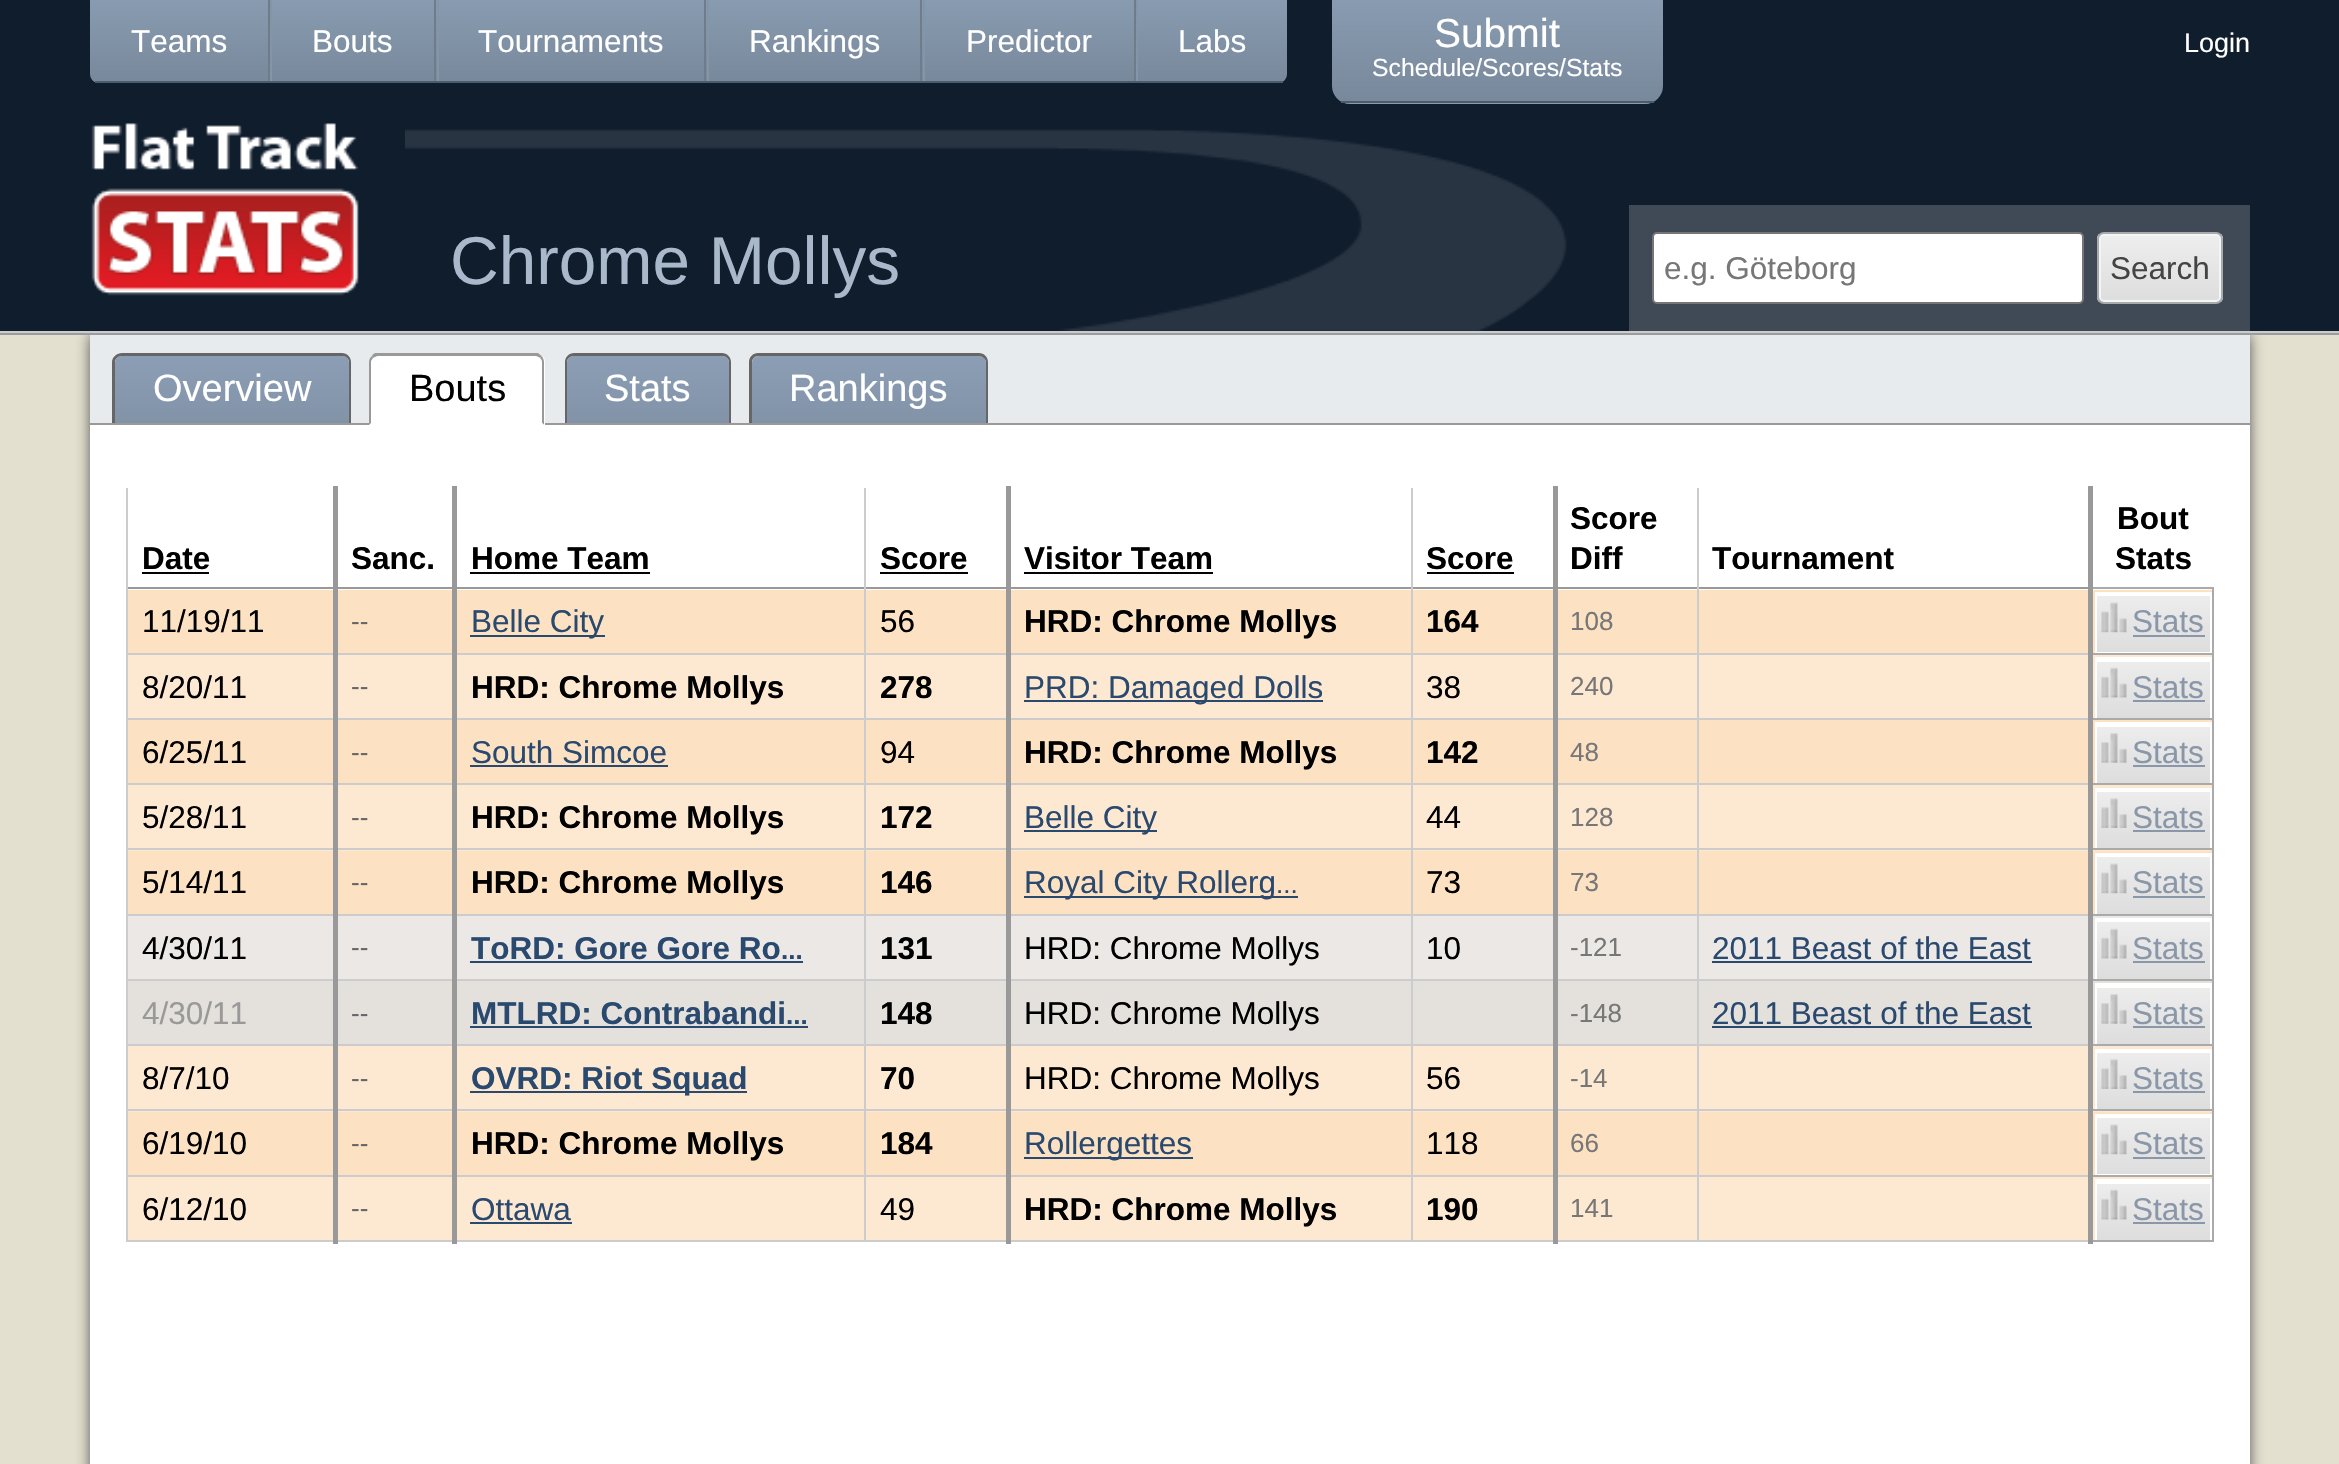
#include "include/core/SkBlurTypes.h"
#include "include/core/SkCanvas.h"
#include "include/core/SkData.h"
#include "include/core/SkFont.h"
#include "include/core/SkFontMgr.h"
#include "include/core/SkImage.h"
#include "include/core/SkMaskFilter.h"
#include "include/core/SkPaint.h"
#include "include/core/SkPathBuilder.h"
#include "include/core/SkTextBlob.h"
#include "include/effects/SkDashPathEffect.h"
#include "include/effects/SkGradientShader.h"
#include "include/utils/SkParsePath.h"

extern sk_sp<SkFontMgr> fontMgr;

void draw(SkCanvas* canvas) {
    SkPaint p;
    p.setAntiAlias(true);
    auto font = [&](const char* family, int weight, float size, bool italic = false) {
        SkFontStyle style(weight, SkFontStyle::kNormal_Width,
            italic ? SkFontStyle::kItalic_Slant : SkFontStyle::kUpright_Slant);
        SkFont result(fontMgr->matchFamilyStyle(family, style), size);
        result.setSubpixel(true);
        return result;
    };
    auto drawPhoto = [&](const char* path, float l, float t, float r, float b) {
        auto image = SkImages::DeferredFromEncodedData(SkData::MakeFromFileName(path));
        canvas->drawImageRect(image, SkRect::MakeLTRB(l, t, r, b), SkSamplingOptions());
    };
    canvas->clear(0xFFE4E0CF);
    p.setColor(0xFF555555);
    p.setMaskFilter(SkMaskFilter::MakeBlur(kNormal_SkBlurStyle, 7));
    canvas->drawRoundRect(SkRect::MakeLTRB(90, 333, 2250, 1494), 9, 9, p);
    p.setMaskFilter(nullptr);
    {
        const struct { float l, t, r, b; SkColor color; } items[] = {
            {0, 0, 2339, 331, 0xFF101D2D},
            {0, 331, 2339, 333, 0xFFCCCCCC},
            {0, 333, 2339, 335, 0xFF9A9D9F},
        };
        for (auto [l, t, r, b, color] : items) {
            p.setColor(color);
            canvas->drawRect(SkRect::MakeLTRB(l, t, r, b), p);
        }
    }
    drawPhoto("media/1.png", 405, 129, 1567, 331);
    canvas->save();
    canvas->clipPath(SkPathBuilder().moveTo(90, 0).lineTo(1287, 0).lineTo(1287, 74).cubicTo(1287, 79, 1283, 83, 1278, 83).lineTo(99, 83).cubicTo(94, 83, 90, 79, 90, 74).close().detach(), true);
    {
        const SkColor colors[] = {0xFF889BB0, 0xFF79899C};
        const float stops[] = {0, 1};
        const SkPoint ends[] = {{689, 0}, {689, 81}};
        p.setShader(SkGradientShader::MakeLinear(ends, colors, stops, 2, SkTileMode::kClamp));
        p.setAlpha(255);
    }
    canvas->drawRect(SkRect::MakeLTRB(90, 0, 1287, 81), p);
    {
        const SkColor colors[] = {0xFF889BB0, 0xFF79899C};
        const float stops[] = {0, 1};
        const SkPoint ends[] = {{689, 81}, {689, 162}};
        p.setShader(SkGradientShader::MakeLinear(ends, colors, stops, 2, SkTileMode::kClamp));
        p.setAlpha(255);
    }
    canvas->drawRect(SkRect::MakeLTRB(90, 81, 1287, 82), p);
    canvas->restore();
    p.setShader(nullptr);
    p.setColor(0xFF4D5C6D);
    canvas->drawRect(SkRect::MakeLTRB(95, 81, 1283, 83), p);
    p.setColor(0xFF6F7C8B);
    canvas->drawRect(SkRect::MakeLTRB(268, 0, 270, 81), p);
    auto font1 = font("Liberation Sans", 400, 31.5f);
    p.setColor(0xFFFFFFFF);
    canvas->drawString("Teams", 131, 52, font1, p);
    p.setColor(0xFF6F7C8B);
    canvas->drawRect(SkRect::MakeLTRB(434, 0, 436, 81), p);
    p.setColor(0xFF8495A8);
    canvas->drawRect(SkRect::MakeLTRB(270, 0, 272, 81), p);
    p.setColor(0xFFFFFFFF);
    canvas->drawString("Bouts", 312, 52, font1, p);
    p.setColor(0xFF6F7C8B);
    canvas->drawRect(SkRect::MakeLTRB(704, 0, 706, 81), p);
    p.setColor(0xFF8495A8);
    canvas->drawRect(SkRect::MakeLTRB(437, 0, 439, 81), p);
    p.setColor(0xFFFFFFFF);
    canvas->drawString("Tournaments", 478, 52, font1, p);
    p.setColor(0xFF6F7C8B);
    canvas->drawRect(SkRect::MakeLTRB(920, 0, 922, 81), p);
    p.setColor(0xFF8495A8);
    canvas->drawRect(SkRect::MakeLTRB(707, 0, 709, 81), p);
    p.setColor(0xFFFFFFFF);
    canvas->drawString("Rankings", 749, 52, font1, p);
    p.setColor(0xFF6F7C8B);
    canvas->drawRect(SkRect::MakeLTRB(1134, 0, 1136, 81), p);
    p.setColor(0xFF8495A8);
    canvas->drawRect(SkRect::MakeLTRB(923, 0, 925, 81), p);
    p.setColor(0xFFFFFFFF);
    canvas->drawString("Predictor", 966, 52, font1, p);
    p.setColor(0xFF8495A8);
    canvas->drawRect(SkRect::MakeLTRB(1136, 0, 1138, 81), p);
    p.setColor(0xFFFFFFFF);
    canvas->drawString("Labs", 1178, 52, font1, p);
    canvas->save();
    canvas->clipPath(SkPathBuilder().moveTo(1332, 0).lineTo(1663, 0).lineTo(1663, 86).cubicTo(1663, 96, 1655, 104, 1645, 104).lineTo(1350, 104).cubicTo(1340, 104, 1332, 96, 1332, 86).close().detach(), true);
    {
        const SkColor colors[] = {0xFF889BB0, 0xFF79899C};
        const float stops[] = {0, 1};
        const SkPoint ends[] = {{1497, 0}, {1497, 101}};
        p.setShader(SkGradientShader::MakeLinear(ends, colors, stops, 2, SkTileMode::kClamp));
        p.setAlpha(255);
    }
    canvas->drawRect(SkRect::MakeLTRB(1332, 0, 1663, 101), p);
    {
        const SkColor colors[] = {0xFF889BB0, 0xFF79899C};
        const float stops[] = {0, 1};
        const SkPoint ends[] = {{1497, 101}, {1497, 203}};
        p.setShader(SkGradientShader::MakeLinear(ends, colors, stops, 2, SkTileMode::kClamp));
        p.setAlpha(255);
    }
    canvas->drawRect(SkRect::MakeLTRB(1332, 101, 1663, 104), p);
    canvas->restore();
    p.setShader(nullptr);
    p.setColor(0xFF4D5C6D);
    canvas->drawRect(SkRect::MakeLTRB(1341, 101, 1654, 103), p);
    auto font2 = font("Liberation Sans", 400, 40.5f);
    p.setColor(0xFFFFFFFF);
    canvas->drawString("Submit", 1434, 47, font2, p);
    auto font3 = font("Liberation Sans", 400, 24.75f);
    canvas->drawString("Schedule/Scores/Stats", 1372, 76, font3, p);
    auto font4 = font("Liberation Sans", 400, 27);
    canvas->drawString("Login", 2184, 52, font4, p);
    drawPhoto("media/2.png", 91, 123, 359, 296);
    auto font5 = font("Liberation Sans", 400, 67.5f);
    p.setColor(0xFFA9B8CA);
    canvas->drawString("Chrome Mollys", 450, 284, font5, p);
    p.setColor(0xFF404A57);
    canvas->drawRect(SkRect::MakeLTRB(1629, 205, 2250, 331), p);
    p.setColor(0xFFFFFFFF);
    canvas->drawRoundRect(SkRect::MakeLTRB(1653, 233, 2083, 303), 4, 4, p);
    p.setStyle(SkPaint::kStroke_Style);
    p.setStrokeWidth(2);
    p.setColor(0xFF767676);
    canvas->drawRoundRect(SkRect::MakeLTRB(1653, 233, 2083, 303), 4, 4, p);
    p.setStyle(SkPaint::kFill_Style);
    p.setColor(0xFF777777);
    canvas->drawString("e.g. Göteborg", 1664, 279, font1, p);
    canvas->save();
    canvas->clipPath(SkPathBuilder().moveTo(2104, 232).lineTo(2216, 232).cubicTo(2220, 232, 2223, 235, 2223, 239).lineTo(2223, 297).cubicTo(2223, 301, 2220, 304, 2216, 304).lineTo(2104, 304).cubicTo(2100, 304, 2097, 301, 2097, 297).lineTo(2097, 239).cubicTo(2097, 235, 2100, 232, 2104, 232).close().detach(), true);
    {
        const SkColor colors[] = {0xFFEEEEEE, 0xFFDDDDDD};
        const float stops[] = {0, 1};
        const SkPoint ends[] = {{2160, 234}, {2160, 302}};
        p.setShader(SkGradientShader::MakeLinear(ends, colors, stops, 2, SkTileMode::kClamp));
        p.setAlpha(255);
    }
    canvas->drawRect(SkRect::MakeLTRB(2097, 234, 2223, 302), p);
    canvas->restore();
    p.setStyle(SkPaint::kStroke_Style);
    p.setShader(nullptr);
    p.setColor(0xFFF1F6F6);
    canvas->drawRoundRect(SkRect::MakeLTRB(2100, 235, 2220, 301), 4, 4, p);
    p.setColor(0xFFAAAAAA);
    canvas->drawRoundRect(SkRect::MakeLTRB(2098, 233, 2222, 303), 6, 6, p);
    p.setStyle(SkPaint::kFill_Style);
    p.setColor(0xFF444444);
    canvas->drawString("Search", 2110, 279, font1, p);
    {
        const struct { float l, t, r, b; SkColor color; } items[] = {
            {90, 425, 2250, 1464, 0xFFFFFFFF},
            {90, 335, 2250, 423, 0xFFE7EBEE},
            {90, 423, 2250, 425, 0xFF999999},
        };
        for (auto [l, t, r, b, color] : items) {
            p.setColor(color);
            canvas->drawRect(SkRect::MakeLTRB(l, t, r, b), p);
        }
    }
    {
        const SkColor colors[] = {0xFF8C9EB5, 0xFF8293A8};
        const float stops[] = {0, 1};
        const SkPoint ends[] = {{232, 356}, {232, 423}};
        p.setShader(SkGradientShader::MakeLinear(ends, colors, stops, 2, SkTileMode::kClamp));
        p.setAlpha(255);
    }
    canvas->drawPath(SkPathBuilder().moveTo(122, 356).lineTo(342, 356).cubicTo(346, 356, 349, 359, 349, 363).lineTo(349, 423).lineTo(115, 423).lineTo(115, 363).cubicTo(115, 359, 118, 356, 122, 356).close().detach(), p);
    p.setShader(nullptr);
    p.setColor(0xFF666666);
    canvas->drawPath(SkPathBuilder(SkPathFillType::kEvenOdd).moveTo(122, 353).lineTo(342, 353).cubicTo(347, 353, 351, 357, 351, 362).lineTo(351, 423).lineTo(112, 423).lineTo(112, 362).cubicTo(112, 357, 117, 353, 122, 353).close().moveTo(122, 356).lineTo(342, 356).cubicTo(346, 356, 349, 359, 349, 362).lineTo(349, 423).lineTo(115, 423).lineTo(115, 362).cubicTo(115, 359, 118, 356, 122, 356).close().detach(), p);
    auto font6 = font("Liberation Sans", 400, 38);
    p.setColor(0xFFFFFFFF);
    canvas->drawString("Overview", 153, 401, font6, p);
    canvas->drawPath(SkPathBuilder().moveTo(378, 353).lineTo(536, 353).cubicTo(541, 353, 545, 357, 545, 362).lineTo(545, 425).lineTo(369, 425).lineTo(369, 362).cubicTo(369, 357, 373, 353, 378, 353).close().detach(), p);
    p.setColor(0xFF999999);
    canvas->drawPath(SkPathBuilder().moveTo(378, 356).cubicTo(376, 356, 375, 357, 373, 358).lineTo(372, 356).cubicTo(372, 355, 374, 353, 376, 353).lineTo(538, 353).lineTo(542, 356).lineTo(540, 358).cubicTo(539, 357, 537, 356, 536, 356).close().detach(), p);
    canvas->drawPath(SkPathBuilder().moveTo(542, 356).cubicTo(543, 358, 544, 360, 544, 362).lineTo(544, 425).lineTo(542, 423).lineTo(542, 362).cubicTo(542, 360, 541, 359, 540, 358).close().detach(), p);
    p.setColor(0xFFFFFFFF);
    canvas->drawPath(SkPathBuilder().moveTo(544, 425).lineTo(369, 425).lineTo(371, 423).lineTo(542, 423).close().detach(), p);
    p.setColor(0xFF999999);
    canvas->drawPath(SkPathBuilder().moveTo(369, 362).lineTo(369, 425).lineTo(371, 423).lineTo(371, 361).lineTo(373, 358).lineTo(372, 356).cubicTo(370, 357, 369, 360, 369, 362).close().detach(), p);
    p.setColor(0xFF000000);
    canvas->drawString("Bouts", 409, 401, font6, p);
    {
        const SkColor colors[] = {0xFF8C9EB5, 0xFF8293A8};
        const float stops[] = {0, 1};
        const SkPoint ends[] = {{648, 356}, {648, 423}};
        p.setShader(SkGradientShader::MakeLinear(ends, colors, stops, 2, SkTileMode::kClamp));
        p.setAlpha(255);
    }
    canvas->drawPath(SkPathBuilder().moveTo(574, 356).lineTo(722, 356).cubicTo(726, 356, 729, 359, 729, 363).lineTo(729, 423).lineTo(567, 423).lineTo(567, 363).cubicTo(567, 359, 570, 356, 574, 356).close().detach(), p);
    p.setShader(nullptr);
    p.setColor(0xFF666666);
    canvas->drawPath(SkPathBuilder(SkPathFillType::kEvenOdd).moveTo(574, 353).lineTo(722, 353).cubicTo(727, 353, 731, 357, 731, 362).lineTo(731, 423).lineTo(565, 423).lineTo(565, 362).cubicTo(565, 357, 569, 353, 574, 353).close().moveTo(574, 356).lineTo(722, 356).cubicTo(726, 356, 729, 359, 729, 362).lineTo(729, 423).lineTo(567, 423).lineTo(567, 362).cubicTo(567, 359, 570, 356, 574, 356).close().detach(), p);
    p.setColor(0xFFFFFFFF);
    canvas->drawString("Stats", 604, 401, font6, p);
    {
        const SkColor colors[] = {0xFF8C9EB5, 0xFF8293A8};
        const float stops[] = {0, 1};
        const SkPoint ends[] = {{869, 356}, {869, 423}};
        p.setShader(SkGradientShader::MakeLinear(ends, colors, stops, 2, SkTileMode::kClamp));
        p.setAlpha(255);
    }
    canvas->drawPath(SkPathBuilder().moveTo(759, 356).lineTo(979, 356).cubicTo(983, 356, 986, 359, 986, 363).lineTo(986, 423).lineTo(752, 423).lineTo(752, 363).cubicTo(752, 359, 755, 356, 759, 356).close().detach(), p);
    p.setShader(nullptr);
    p.setColor(0xFF666666);
    canvas->drawPath(SkPathBuilder(SkPathFillType::kEvenOdd).moveTo(758, 353).lineTo(979, 353).cubicTo(984, 353, 988, 357, 988, 362).lineTo(988, 423).lineTo(749, 423).lineTo(749, 362).cubicTo(749, 357, 753, 353, 758, 353).close().moveTo(758, 356).lineTo(979, 356).cubicTo(982, 356, 986, 359, 986, 362).lineTo(986, 423).lineTo(752, 423).lineTo(752, 362).cubicTo(752, 359, 755, 356, 758, 356).close().detach(), p);
    p.setColor(0xFFFFFFFF);
    canvas->drawString("Rankings", 789, 401, font6, p);
    p.setColor(0xFF999999);
    canvas->drawRect(SkRect::MakeLTRB(126, 587, 2088, 589), p);
    auto font7 = font("Liberation Sans", 700, 31.5f);
    p.setColor(0xFF000000);
    canvas->drawString("Date", 142, 569, font7, p);
    canvas->drawRect(SkRect::MakeLTRB(142, 572, 209, 574), p);
    canvas->drawString("Sanc.", 351, 569, font7, p);
    canvas->drawString("Home Team", 471, 569, font7, p);
    canvas->drawRect(SkRect::MakeLTRB(470, 572, 650, 574), p);
    canvas->drawString("Score", 880, 569, font7, p);
    canvas->drawRect(SkRect::MakeLTRB(880, 572, 968, 574), p);
    canvas->drawString("Visitor Team", 1024, 569, font7, p);
    canvas->drawRect(SkRect::MakeLTRB(1024, 572, 1213, 574), p);
    canvas->drawString("Score", 1426, 569, font7, p);
    canvas->drawRect(SkRect::MakeLTRB(1427, 572, 1514, 574), p);
    {
        const struct { const char* s; float x, y; } items[] = {
            {"Score", 1570, 529},
            {"Diff", 1570, 569},
            {"Tournament", 1712, 569},
            {"Bout", 2117, 529},
            {"Stats", 2115, 569},
        };
        for (auto [s, x, y] : items) {
            canvas->drawString(s, x, y, font7, p);
        }
    }
    p.setColor(0xFFFCE1C2);
    canvas->drawRect(SkRect::MakeLTRB(128, 590, 2212, 653), p);
    p.setColor(0xFFCCCCCC);
    canvas->drawRect(SkRect::MakeLTRB(126, 653, 2088, 655), p);
    p.setColor(0xFF000000);
    canvas->drawString("11/19/11", 142, 632, font1, p);
    auto font8 = font("Liberation Sans", 400, 26);
    p.setColor(0xFF666666);
    canvas->drawString("--", 351, 630, font8, p);
    p.setColor(0xFF2A496F);
    canvas->drawRect(SkRect::MakeLTRB(470, 635, 605, 637), p);
    canvas->drawString("Belle City", 471, 632, font1, p);
    p.setColor(0xFF000000);
    canvas->drawString("56", 880, 632, font1, p);
    canvas->drawString("HRD: Chrome Mollys", 1024, 632, font7, p);
    canvas->drawString("164", 1426, 632, font7, p);
    p.setColor(0xFF777777);
    canvas->drawString("108", 1570, 630, font8, p);
    {
        const struct { float l, t, r, b; SkColor color; } items[] = {
            {2090, 587, 2214, 589, 0xFFAAAAAA},
            {2090, 653, 2214, 655, 0xFFAAAAAA},
            {2090, 718, 2214, 720, 0xFFAAAAAA},
            {2090, 783, 2214, 785, 0xFFAAAAAA},
            {128, 785, 2212, 851, 0xFFFDE8D1},
            {2090, 848, 2214, 850, 0xFFAAAAAA},
            {2090, 914, 2214, 916, 0xFFAAAAAA},
            {2090, 979, 2214, 981, 0xFFAAAAAA},
            {2090, 1044, 2214, 1046, 0xFFAAAAAA},
            {128, 1046, 2212, 1112, 0xFFFDE8D1},
            {2090, 1109, 2214, 1111, 0xFFAAAAAA},
            {2090, 1175, 2214, 1177, 0xFFAAAAAA},
            {2212, 1175, 2214, 1242, 0xFFAAAAAA},
            {2212, 1109, 2214, 1177, 0xFFAAAAAA},
            {2212, 1044, 2214, 1112, 0xFFAAAAAA},
            {2212, 979, 2214, 1046, 0xFFAAAAAA},
            {2212, 914, 2214, 981, 0xFFAAAAAA},
            {2212, 848, 2214, 916, 0xFFAAAAAA},
            {2212, 783, 2214, 851, 0xFFAAAAAA},
            {2212, 718, 2214, 785, 0xFFAAAAAA},
            {2212, 653, 2214, 720, 0xFFAAAAAA},
            {2212, 587, 2214, 655, 0xFFAAAAAA},
        };
        for (auto [l, t, r, b, color] : items) {
            p.setColor(color);
            canvas->drawRect(SkRect::MakeLTRB(l, t, r, b), p);
        }
    }
    {
        const SkColor colors[] = {0xFFEEEEEE, 0xFFDDDDDD};
        const float stops[] = {0, 1};
        const SkPoint ends[] = {{2153, 592}, {2153, 653}};
        p.setShader(SkGradientShader::MakeLinear(ends, colors, stops, 2, SkTileMode::kClamp));
        p.setAlpha(255);
    }
    canvas->drawRect(SkRect::MakeLTRB(2097, 596, 2210, 652), p);
    canvas->save();
    canvas->clipRect(SkRect::MakeLTRB(2095, 592, 2212, 653));
    p.setShader(nullptr);
    p.setColor(0xFFFFFFFF);
    canvas->drawPath(SkPathBuilder(SkPathFillType::kEvenOdd).moveTo(1872, 369).lineTo(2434, 369).lineTo(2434, 875).lineTo(1872, 875).close().moveTo(2097, 596).lineTo(2210, 596).lineTo(2210, 652).lineTo(2097, 652).close().detach(), p);
    canvas->restore();
    drawPhoto("media/3.png", 2101, 602, 2127, 633);
    p.setColor(0xFF8A97A8);
    canvas->drawString("Stats", 2132, 632, font1, p);
    {
        const struct { float l, t, r, b; SkColor color; } items[] = {
            {2133, 635, 2205, 637, 0xFF8A97A8},
            {128, 655, 2212, 718, 0xFFFDE8D1},
            {126, 718, 2088, 720, 0xFFCCCCCC},
        };
        for (auto [l, t, r, b, color] : items) {
            p.setColor(color);
            canvas->drawRect(SkRect::MakeLTRB(l, t, r, b), p);
        }
    }
    p.setColor(0xFF000000);
    canvas->drawString("8/20/11", 142, 698, font1, p);
    p.setColor(0xFF666666);
    canvas->drawString("--", 351, 695, font8, p);
    p.setColor(0xFF000000);
    canvas->drawString("HRD: Chrome Mollys", 471, 698, font7, p);
    canvas->drawString("278", 880, 698, font7, p);
    p.setColor(0xFF2A496F);
    canvas->drawRect(SkRect::MakeLTRB(1024, 700, 1323, 702), p);
    canvas->drawString("PRD: Damaged Dolls", 1024, 698, font1, p);
    p.setColor(0xFF000000);
    canvas->drawString("38", 1426, 698, font1, p);
    p.setColor(0xFF777777);
    canvas->drawString("240", 1570, 695, font8, p);
    {
        const SkColor colors[] = {0xFFEEEEEE, 0xFFDDDDDD};
        const float stops[] = {0, 1};
        const SkPoint ends[] = {{2153, 657}, {2153, 718}};
        p.setShader(SkGradientShader::MakeLinear(ends, colors, stops, 2, SkTileMode::kClamp));
        p.setAlpha(255);
    }
    canvas->drawRect(SkRect::MakeLTRB(2097, 662, 2210, 718), p);
    canvas->save();
    canvas->clipRect(SkRect::MakeLTRB(2095, 657, 2212, 718));
    p.setShader(nullptr);
    p.setColor(0xFFFFFFFF);
    canvas->drawPath(SkPathBuilder(SkPathFillType::kEvenOdd).moveTo(1872, 434).lineTo(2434, 434).lineTo(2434, 940).lineTo(1872, 940).close().moveTo(2097, 662).lineTo(2210, 662).lineTo(2210, 718).lineTo(2097, 718).close().detach(), p);
    canvas->restore();
    drawPhoto("media/4.png", 2101, 667, 2127, 698);
    p.setColor(0xFF8A97A8);
    canvas->drawString("Stats", 2132, 698, font1, p);
    {
        const struct { float l, t, r, b; SkColor color; } items[] = {
            {2133, 700, 2205, 702, 0xFF8A97A8},
            {128, 720, 2212, 783, 0xFFFCE1C2},
            {126, 783, 2088, 785, 0xFFCCCCCC},
        };
        for (auto [l, t, r, b, color] : items) {
            p.setColor(color);
            canvas->drawRect(SkRect::MakeLTRB(l, t, r, b), p);
        }
    }
    p.setColor(0xFF000000);
    canvas->drawString("6/25/11", 142, 763, font1, p);
    p.setColor(0xFF666666);
    canvas->drawString("--", 351, 761, font8, p);
    p.setColor(0xFF2A496F);
    canvas->drawString("South Simcoe", 471, 763, font1, p);
    canvas->drawRect(SkRect::MakeLTRB(470, 765, 668, 767), p);
    p.setColor(0xFF000000);
    canvas->drawString("94", 880, 763, font1, p);
    canvas->drawString("HRD: Chrome Mollys", 1024, 763, font7, p);
    canvas->drawString("142", 1426, 763, font7, p);
    p.setColor(0xFF777777);
    canvas->drawString("48", 1570, 761, font8, p);
    {
        const SkColor colors[] = {0xFFEEEEEE, 0xFFDDDDDD};
        const float stops[] = {0, 1};
        const SkPoint ends[] = {{2153, 722}, {2153, 783}};
        p.setShader(SkGradientShader::MakeLinear(ends, colors, stops, 2, SkTileMode::kClamp));
        p.setAlpha(255);
    }
    canvas->drawRect(SkRect::MakeLTRB(2097, 727, 2210, 783), p);
    canvas->save();
    canvas->clipRect(SkRect::MakeLTRB(2095, 722, 2212, 783));
    p.setShader(nullptr);
    p.setColor(0xFFFFFFFF);
    canvas->drawPath(SkPathBuilder(SkPathFillType::kEvenOdd).moveTo(1872, 500).lineTo(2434, 500).lineTo(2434, 1006).lineTo(1872, 1006).close().moveTo(2097, 727).lineTo(2210, 727).lineTo(2210, 783).lineTo(2097, 783).close().detach(), p);
    canvas->restore();
    drawPhoto("media/5.png", 2101, 733, 2127, 763);
    p.setColor(0xFF8A97A8);
    canvas->drawString("Stats", 2132, 763, font1, p);
    canvas->drawRect(SkRect::MakeLTRB(2133, 765, 2205, 767), p);
    p.setColor(0xFFCCCCCC);
    canvas->drawRect(SkRect::MakeLTRB(126, 848, 2088, 850), p);
    p.setColor(0xFF000000);
    canvas->drawString("5/28/11", 142, 828, font1, p);
    p.setColor(0xFF666666);
    canvas->drawString("--", 351, 826, font8, p);
    p.setColor(0xFF000000);
    canvas->drawString("HRD: Chrome Mollys", 471, 828, font7, p);
    canvas->drawString("172", 880, 828, font7, p);
    p.setColor(0xFF2A496F);
    canvas->drawRect(SkRect::MakeLTRB(1024, 830, 1157, 832), p);
    canvas->drawString("Belle City", 1024, 828, font1, p);
    p.setColor(0xFF000000);
    canvas->drawString("44", 1426, 828, font1, p);
    p.setColor(0xFF777777);
    canvas->drawString("128", 1570, 826, font8, p);
    {
        const SkColor colors[] = {0xFFEEEEEE, 0xFFDDDDDD};
        const float stops[] = {0, 1};
        const SkPoint ends[] = {{2153, 788}, {2153, 848}};
        p.setShader(SkGradientShader::MakeLinear(ends, colors, stops, 2, SkTileMode::kClamp));
        p.setAlpha(255);
    }
    canvas->drawRect(SkRect::MakeLTRB(2097, 792, 2210, 848), p);
    canvas->save();
    canvas->clipRect(SkRect::MakeLTRB(2095, 788, 2212, 848));
    p.setShader(nullptr);
    p.setColor(0xFFFFFFFF);
    canvas->drawPath(SkPathBuilder(SkPathFillType::kEvenOdd).moveTo(1872, 565).lineTo(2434, 565).lineTo(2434, 1071).lineTo(1872, 1071).close().moveTo(2097, 792).lineTo(2210, 792).lineTo(2210, 848).lineTo(2097, 848).close().detach(), p);
    canvas->restore();
    drawPhoto("media/6.png", 2101, 798, 2127, 828);
    p.setColor(0xFF8A97A8);
    canvas->drawString("Stats", 2132, 828, font1, p);
    {
        const struct { float l, t, r, b; SkColor color; } items[] = {
            {2133, 830, 2205, 832, 0xFF8A97A8},
            {128, 851, 2212, 914, 0xFFFCE1C2},
            {126, 914, 2088, 916, 0xFFCCCCCC},
        };
        for (auto [l, t, r, b, color] : items) {
            p.setColor(color);
            canvas->drawRect(SkRect::MakeLTRB(l, t, r, b), p);
        }
    }
    p.setColor(0xFF000000);
    canvas->drawString("5/14/11", 142, 893, font1, p);
    p.setColor(0xFF666666);
    canvas->drawString("--", 351, 891, font8, p);
    p.setColor(0xFF000000);
    canvas->drawString("HRD: Chrome Mollys", 471, 893, font7, p);
    canvas->drawString("146", 880, 893, font7, p);
    p.setColor(0xFF2A496F);
    canvas->drawRect(SkRect::MakeLTRB(1024, 896, 1298, 898), p);
    canvas->drawString("Royal City Rollerg", 1024, 893, font1, p);
    canvas->drawString("...", 1276, 893, font8, p);
    p.setColor(0xFF000000);
    canvas->drawString("73", 1426, 893, font1, p);
    p.setColor(0xFF777777);
    canvas->drawString("73", 1570, 891, font8, p);
    {
        const SkColor colors[] = {0xFFEEEEEE, 0xFFDDDDDD};
        const float stops[] = {0, 1};
        const SkPoint ends[] = {{2153, 853}, {2153, 914}};
        p.setShader(SkGradientShader::MakeLinear(ends, colors, stops, 2, SkTileMode::kClamp));
        p.setAlpha(255);
    }
    canvas->drawRect(SkRect::MakeLTRB(2097, 857, 2210, 914), p);
    canvas->save();
    canvas->clipRect(SkRect::MakeLTRB(2095, 853, 2212, 914));
    p.setShader(nullptr);
    p.setColor(0xFFFFFFFF);
    canvas->drawPath(SkPathBuilder(SkPathFillType::kEvenOdd).moveTo(1872, 630).lineTo(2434, 630).lineTo(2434, 1136).lineTo(1872, 1136).close().moveTo(2097, 857).lineTo(2210, 857).lineTo(2210, 914).lineTo(2097, 914).close().detach(), p);
    canvas->restore();
    drawPhoto("media/3.png", 2101, 863, 2127, 894);
    p.setColor(0xFF8A97A8);
    canvas->drawString("Stats", 2132, 893, font1, p);
    {
        const struct { float l, t, r, b; SkColor color; } items[] = {
            {2133, 896, 2205, 898, 0xFF8A97A8},
            {128, 916, 2212, 979, 0xFFEBE8E5},
            {126, 979, 2088, 981, 0xFFCCCCCC},
        };
        for (auto [l, t, r, b, color] : items) {
            p.setColor(color);
            canvas->drawRect(SkRect::MakeLTRB(l, t, r, b), p);
        }
    }
    p.setColor(0xFF000000);
    canvas->drawString("4/30/11", 142, 959, font1, p);
    p.setColor(0xFF666666);
    canvas->drawString("--", 351, 956, font8, p);
    p.setColor(0xFF2A496F);
    canvas->drawString("ToRD: Gore Gore Ro", 471, 959, font7, p);
    auto font9 = font("Liberation Sans", 700, 26);
    canvas->drawString("...", 781, 959, font9, p);
    canvas->drawRect(SkRect::MakeLTRB(470, 961, 803, 963), p);
    p.setColor(0xFF000000);
    canvas->drawString("131", 880, 959, font7, p);
    canvas->drawString("HRD: Chrome Mollys", 1024, 959, font1, p);
    canvas->drawString("10", 1426, 959, font1, p);
    p.setColor(0xFF777777);
    canvas->drawString("-121", 1570, 956, font8, p);
    p.setColor(0xFF2A496F);
    canvas->drawString("2011 Beast of the East", 1712, 959, font1, p);
    canvas->drawRect(SkRect::MakeLTRB(1712, 961, 2032, 963), p);
    {
        const SkColor colors[] = {0xFFEEEEEE, 0xFFDDDDDD};
        const float stops[] = {0, 1};
        const SkPoint ends[] = {{2153, 918}, {2153, 979}};
        p.setShader(SkGradientShader::MakeLinear(ends, colors, stops, 2, SkTileMode::kClamp));
        p.setAlpha(255);
    }
    canvas->drawRect(SkRect::MakeLTRB(2097, 922, 2210, 979), p);
    canvas->save();
    canvas->clipRect(SkRect::MakeLTRB(2095, 918, 2212, 979));
    p.setShader(nullptr);
    p.setColor(0xFFFFFFFF);
    canvas->drawPath(SkPathBuilder(SkPathFillType::kEvenOdd).moveTo(1872, 695).lineTo(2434, 695).lineTo(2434, 1202).lineTo(1872, 1202).close().moveTo(2097, 922).lineTo(2210, 922).lineTo(2210, 979).lineTo(2097, 979).close().detach(), p);
    canvas->restore();
    drawPhoto("media/4.png", 2101, 928, 2127, 959);
    p.setColor(0xFF8A97A8);
    canvas->drawString("Stats", 2132, 959, font1, p);
    {
        const struct { float l, t, r, b; SkColor color; } items[] = {
            {2133, 961, 2205, 963, 0xFF8A97A8},
            {128, 981, 2212, 1044, 0xFFE4E0DC},
            {126, 1044, 2088, 1046, 0xFFCCCCCC},
        };
        for (auto [l, t, r, b, color] : items) {
            p.setColor(color);
            canvas->drawRect(SkRect::MakeLTRB(l, t, r, b), p);
        }
    }
    p.setColor(0xFF999999);
    canvas->drawString("4/30/11", 142, 1024, font1, p);
    p.setColor(0xFF666666);
    canvas->drawString("--", 351, 1022, font8, p);
    p.setColor(0xFF2A496F);
    canvas->drawString("MTLRD: Contrabandi", 471, 1024, font7, p);
    canvas->drawString("...", 786, 1024, font9, p);
    canvas->drawRect(SkRect::MakeLTRB(470, 1026, 808, 1028), p);
    p.setColor(0xFF000000);
    canvas->drawString("148", 880, 1024, font7, p);
    canvas->drawString("HRD: Chrome Mollys", 1024, 1024, font1, p);
    p.setColor(0xFF777777);
    canvas->drawString("-148", 1570, 1022, font8, p);
    p.setColor(0xFF2A496F);
    canvas->drawString("2011 Beast of the East", 1712, 1024, font1, p);
    canvas->drawRect(SkRect::MakeLTRB(1712, 1026, 2032, 1028), p);
    {
        const SkColor colors[] = {0xFFEEEEEE, 0xFFDDDDDD};
        const float stops[] = {0, 1};
        const SkPoint ends[] = {{2153, 983}, {2153, 1044}};
        p.setShader(SkGradientShader::MakeLinear(ends, colors, stops, 2, SkTileMode::kClamp));
        p.setAlpha(255);
    }
    canvas->drawRect(SkRect::MakeLTRB(2097, 988, 2210, 1044), p);
    canvas->save();
    canvas->clipRect(SkRect::MakeLTRB(2095, 983, 2212, 1044));
    p.setShader(nullptr);
    p.setColor(0xFFFFFFFF);
    canvas->drawPath(SkPathBuilder(SkPathFillType::kEvenOdd).moveTo(1872, 760).lineTo(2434, 760).lineTo(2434, 1267).lineTo(1872, 1267).close().moveTo(2097, 988).lineTo(2210, 988).lineTo(2210, 1044).lineTo(2097, 1044).close().detach(), p);
    canvas->restore();
    drawPhoto("media/5.png", 2101, 994, 2127, 1024);
    p.setColor(0xFF8A97A8);
    canvas->drawString("Stats", 2132, 1024, font1, p);
    canvas->drawRect(SkRect::MakeLTRB(2133, 1026, 2205, 1028), p);
    p.setColor(0xFFCCCCCC);
    canvas->drawRect(SkRect::MakeLTRB(126, 1109, 2088, 1111), p);
    p.setColor(0xFF000000);
    canvas->drawString("8/7/10", 142, 1089, font1, p);
    p.setColor(0xFF666666);
    canvas->drawString("--", 351, 1087, font8, p);
    p.setColor(0xFF2A496F);
    canvas->drawRect(SkRect::MakeLTRB(470, 1091, 747, 1093), p);
    canvas->drawString("OVRD: Riot Squad", 471, 1089, font7, p);
    p.setColor(0xFF000000);
    canvas->drawString("70", 880, 1089, font7, p);
    canvas->drawString("HRD: Chrome Mollys", 1024, 1089, font1, p);
    canvas->drawString("56", 1426, 1089, font1, p);
    p.setColor(0xFF777777);
    canvas->drawString("-14", 1570, 1087, font8, p);
    {
        const SkColor colors[] = {0xFFEEEEEE, 0xFFDDDDDD};
        const float stops[] = {0, 1};
        const SkPoint ends[] = {{2153, 1049}, {2153, 1109}};
        p.setShader(SkGradientShader::MakeLinear(ends, colors, stops, 2, SkTileMode::kClamp));
        p.setAlpha(255);
    }
    canvas->drawRect(SkRect::MakeLTRB(2097, 1053, 2210, 1109), p);
    canvas->save();
    canvas->clipRect(SkRect::MakeLTRB(2095, 1049, 2212, 1109));
    p.setShader(nullptr);
    p.setColor(0xFFFFFFFF);
    canvas->drawPath(SkPathBuilder(SkPathFillType::kEvenOdd).moveTo(1872, 826).lineTo(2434, 826).lineTo(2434, 1332).lineTo(1872, 1332).close().moveTo(2097, 1053).lineTo(2210, 1053).lineTo(2210, 1109).lineTo(2097, 1109).close().detach(), p);
    canvas->restore();
    drawPhoto("media/6.png", 2101, 1059, 2127, 1089);
    p.setColor(0xFF8A97A8);
    canvas->drawString("Stats", 2132, 1089, font1, p);
    {
        const struct { float l, t, r, b; SkColor color; } items[] = {
            {2133, 1091, 2205, 1093, 0xFF8A97A8},
            {128, 1112, 2212, 1175, 0xFFFCE1C2},
            {126, 1175, 2088, 1177, 0xFFCCCCCC},
        };
        for (auto [l, t, r, b, color] : items) {
            p.setColor(color);
            canvas->drawRect(SkRect::MakeLTRB(l, t, r, b), p);
        }
    }
    p.setColor(0xFF000000);
    canvas->drawString("6/19/10", 142, 1154, font1, p);
    p.setColor(0xFF666666);
    canvas->drawString("--", 351, 1152, font8, p);
    p.setColor(0xFF000000);
    canvas->drawString("HRD: Chrome Mollys", 471, 1154, font7, p);
    canvas->drawString("184", 880, 1154, font7, p);
    p.setColor(0xFF2A496F);
    canvas->drawRect(SkRect::MakeLTRB(1024, 1157, 1193, 1159), p);
    canvas->drawString("Rollergettes", 1024, 1154, font1, p);
    p.setColor(0xFF000000);
    canvas->drawString("118", 1426, 1154, font1, p);
    p.setColor(0xFF777777);
    canvas->drawString("66", 1570, 1152, font8, p);
    {
        const SkColor colors[] = {0xFFEEEEEE, 0xFFDDDDDD};
        const float stops[] = {0, 1};
        const SkPoint ends[] = {{2153, 1114}, {2153, 1175}};
        p.setShader(SkGradientShader::MakeLinear(ends, colors, stops, 2, SkTileMode::kClamp));
        p.setAlpha(255);
    }
    canvas->drawRect(SkRect::MakeLTRB(2097, 1118, 2210, 1174), p);
    canvas->save();
    canvas->clipRect(SkRect::MakeLTRB(2095, 1114, 2212, 1175));
    p.setShader(nullptr);
    p.setColor(0xFFFFFFFF);
    canvas->drawPath(SkPathBuilder(SkPathFillType::kEvenOdd).moveTo(1872, 891).lineTo(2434, 891).lineTo(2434, 1397).lineTo(1872, 1397).close().moveTo(2097, 1118).lineTo(2210, 1118).lineTo(2210, 1174).lineTo(2097, 1174).close().detach(), p);
    canvas->restore();
    drawPhoto("media/3.png", 2101, 1124, 2127, 1155);
    p.setColor(0xFF8A97A8);
    canvas->drawString("Stats", 2132, 1154, font1, p);
    {
        const struct { float l, t, r, b; SkColor color; } items[] = {
            {2133, 1157, 2205, 1159, 0xFF8A97A8},
            {128, 1177, 2212, 1240, 0xFFFDE8D1},
            {126, 1240, 2088, 1242, 0xFFCCCCCC},
            {126, 488, 128, 1242, 0xFFCCCCCC},
            {333, 486, 338, 1244, 0xFF999999},
        };
        for (auto [l, t, r, b, color] : items) {
            p.setColor(color);
            canvas->drawRect(SkRect::MakeLTRB(l, t, r, b), p);
        }
    }
    p.setColor(0xFF000000);
    canvas->drawString("6/12/10", 142, 1220, font1, p);
    p.setColor(0xFF999999);
    canvas->drawRect(SkRect::MakeLTRB(452, 486, 457, 1244), p);
    p.setColor(0xFF666666);
    canvas->drawString("--", 351, 1217, font8, p);
    p.setColor(0xFF2A496F);
    canvas->drawString("Ottawa", 471, 1220, font1, p);
    {
        const struct { float l, t, r, b; SkColor color; } items[] = {
            {470, 1222, 572, 1224, 0xFF2A496F},
            {864, 488, 866, 1242, 0xFFCCCCCC},
            {1006, 486, 1011, 1244, 0xFF999999},
        };
        for (auto [l, t, r, b, color] : items) {
            p.setColor(color);
            canvas->drawRect(SkRect::MakeLTRB(l, t, r, b), p);
        }
    }
    p.setColor(0xFF000000);
    canvas->drawString("49", 880, 1220, font1, p);
    canvas->drawString("HRD: Chrome Mollys", 1024, 1220, font7, p);
    p.setColor(0xFFCCCCCC);
    canvas->drawRect(SkRect::MakeLTRB(1411, 488, 1413, 1242), p);
    p.setColor(0xFF999999);
    canvas->drawRect(SkRect::MakeLTRB(1553, 486, 1558, 1244), p);
    p.setColor(0xFF000000);
    canvas->drawString("190", 1426, 1220, font7, p);
    p.setColor(0xFF777777);
    canvas->drawString("141", 1570, 1217, font8, p);
    {
        const struct { float l, t, r, b; SkColor color; } items[] = {
            {1697, 488, 1699, 1242, 0xFFCCCCCC},
            {2090, 1240, 2214, 1242, 0xFFAAAAAA},
            {2088, 486, 2093, 1244, 0xFF999999},
        };
        for (auto [l, t, r, b, color] : items) {
            p.setColor(color);
            canvas->drawRect(SkRect::MakeLTRB(l, t, r, b), p);
        }
    }
    {
        const SkColor colors[] = {0xFFEEEEEE, 0xFFDDDDDD};
        const float stops[] = {0, 1};
        const SkPoint ends[] = {{2153, 1179}, {2153, 1240}};
        p.setShader(SkGradientShader::MakeLinear(ends, colors, stops, 2, SkTileMode::kClamp));
        p.setAlpha(255);
    }
    canvas->drawRect(SkRect::MakeLTRB(2097, 1184, 2210, 1240), p);
    canvas->save();
    canvas->clipRect(SkRect::MakeLTRB(2095, 1179, 2212, 1240));
    p.setShader(nullptr);
    p.setColor(0xFFFFFFFF);
    canvas->drawPath(SkPathBuilder(SkPathFillType::kEvenOdd).moveTo(1872, 956).lineTo(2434, 956).lineTo(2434, 1462).lineTo(1872, 1462).close().moveTo(2097, 1184).lineTo(2210, 1184).lineTo(2210, 1240).lineTo(2097, 1240).close().detach(), p);
    canvas->restore();
    drawPhoto("media/4.png", 2101, 1189, 2127, 1220);
    p.setColor(0xFF8A97A8);
    canvas->drawString("Stats", 2132, 1220, font1, p);
    canvas->drawRect(SkRect::MakeLTRB(2133, 1222, 2205, 1224), p);
}
